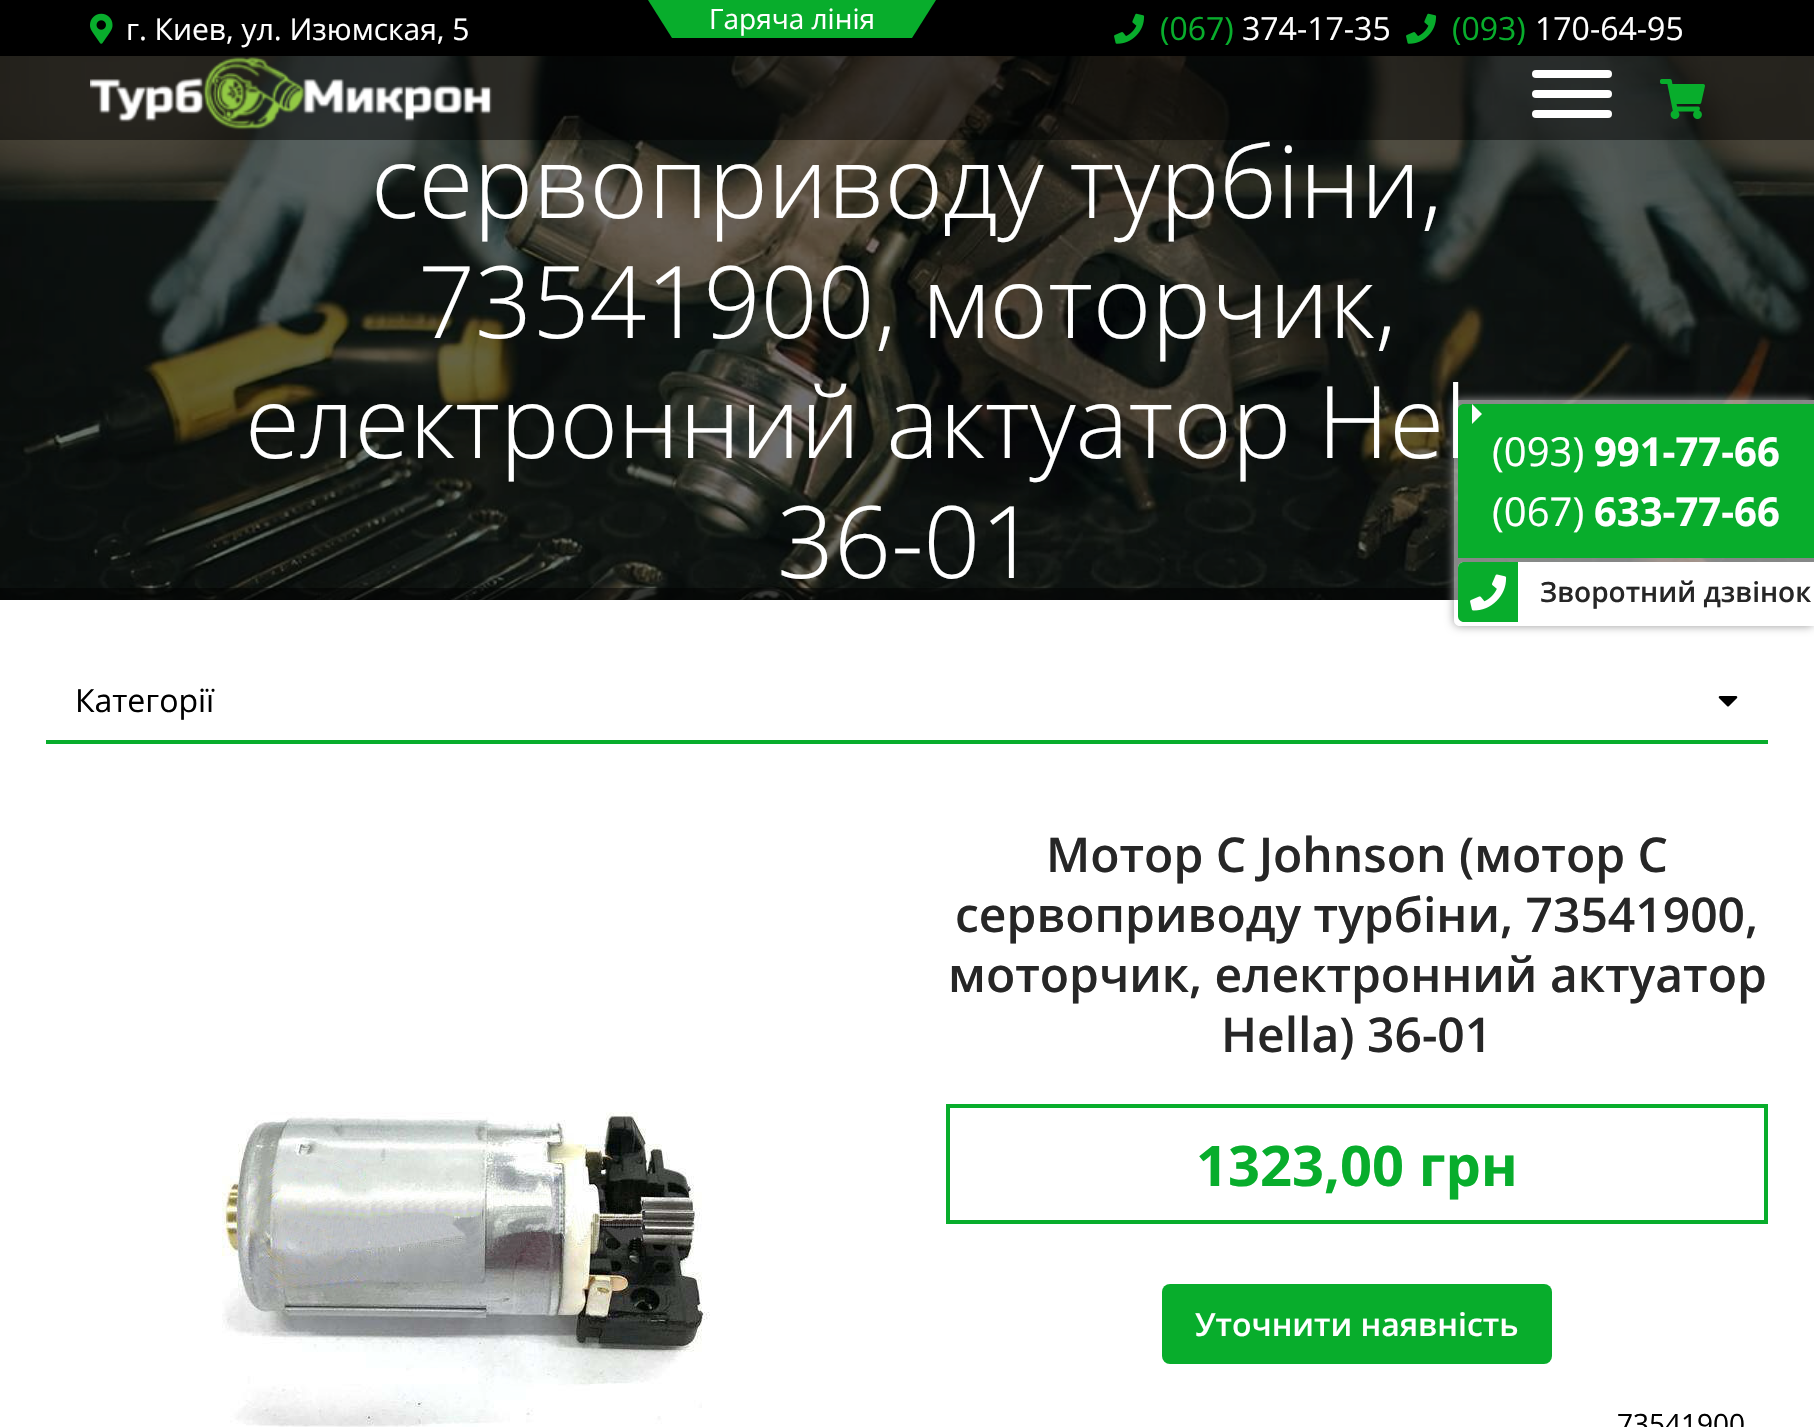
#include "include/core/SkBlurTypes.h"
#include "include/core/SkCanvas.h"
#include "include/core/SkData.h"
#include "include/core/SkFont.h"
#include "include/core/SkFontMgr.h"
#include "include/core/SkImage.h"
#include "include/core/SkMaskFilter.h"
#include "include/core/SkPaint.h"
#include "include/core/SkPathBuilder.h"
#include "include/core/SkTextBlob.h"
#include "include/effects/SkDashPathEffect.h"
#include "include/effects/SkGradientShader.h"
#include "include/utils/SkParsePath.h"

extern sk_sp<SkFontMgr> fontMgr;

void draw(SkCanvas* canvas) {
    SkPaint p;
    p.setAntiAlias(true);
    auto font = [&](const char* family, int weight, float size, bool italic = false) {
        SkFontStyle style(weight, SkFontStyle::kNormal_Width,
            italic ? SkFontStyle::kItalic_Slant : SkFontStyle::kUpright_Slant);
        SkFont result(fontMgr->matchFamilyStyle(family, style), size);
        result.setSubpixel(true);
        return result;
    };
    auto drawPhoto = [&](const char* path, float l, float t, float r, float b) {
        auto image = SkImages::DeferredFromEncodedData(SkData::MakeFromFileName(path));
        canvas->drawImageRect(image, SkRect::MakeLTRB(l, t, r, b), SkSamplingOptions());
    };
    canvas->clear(0xFFFFFFFF);
    drawPhoto("media/6.png", 0, 56, 1814, 600);
    p.setColor(0x80000000);
    canvas->drawRect(SkRect::MakeLTRB(0, 56, 1814, 140), p);
    p.setColor(0xFF000000);
    canvas->drawRect(SkRect::MakeLTRB(0, 0, 1814, 56), p);
    drawPhoto("media/1.png", 90, 13, 113, 44);
    auto font1 = font("Open Sans", 400, 30);
    p.setColor(0xFFFFFFFF);
    canvas->drawString("г. Киев, ул. Изюмская, 5", 126, 40, font1, p);
    p.setColor(0xFF08AD2C);
    canvas->drawPath(SkPathBuilder().moveTo(648, 0).lineTo(936, 0).lineTo(912, 38).lineTo(672, 38).close().detach(), p);
    auto font2 = font("Open Sans", 400, 28);
    p.setColor(0xFFFFFFFF);
    canvas->drawString("Гаряча лінія", 709, 29, font2, p);
    drawPhoto("media/2.png", 1114, 13, 1145, 44);
    auto font3 = font("Open Sans", 400, 32);
    p.setColor(0xFF08AD2C);
    canvas->drawString("(067)", 1160, 40, font3, p);
    p.setColor(0xFFFFFFFF);
    canvas->drawString("374-17-35", 1242, 40, font3, p);
    drawPhoto("media/2.png", 1406, 13, 1437, 44);
    p.setColor(0xFF08AD2C);
    canvas->drawString("(093)", 1452, 40, font3, p);
    p.setColor(0xFFFFFFFF);
    canvas->drawString("170-64-95", 1535, 40, font3, p);
    drawPhoto("media/3.png", 90, 57, 492, 130);
    canvas->drawRoundRect(SkRect::MakeLTRB(1532, 90, 1612, 98), 4, 4, p);
    canvas->drawRoundRect(SkRect::MakeLTRB(1532, 70, 1612, 78), 4, 4, p);
    canvas->drawRoundRect(SkRect::MakeLTRB(1532, 110, 1612, 118), 4, 4, p);
    drawPhoto("media/4.png", 1660, 79, 1705, 119);
    p.setColor(0x80000000);
    canvas->drawRect(SkRect::MakeLTRB(0, 588, 1458, 600), p);
    canvas->save();
    canvas->clipPath(SkPathBuilder(SkPathFillType::kEvenOdd).moveTo(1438, 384).lineTo(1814, 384).lineTo(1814, 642).lineTo(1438, 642).close().moveTo(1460, 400).lineTo(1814, 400).lineTo(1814, 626).lineTo(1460, 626).cubicTo(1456.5f, 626, 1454, 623.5f, 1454, 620).lineTo(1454, 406).cubicTo(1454, 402.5f, 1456.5f, 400, 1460, 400).close().detach(), true);
    p.setColor(0xFF999999);
    p.setMaskFilter(SkMaskFilter::MakeBlur(kNormal_SkBlurStyle, 5));
    canvas->drawRoundRect(SkRect::MakeLTRB(1454, 400, 1814, 626), 6, 6, p);
    p.setMaskFilter(nullptr);
    canvas->restore();
    auto font4 = font("Open Sans", 300, 100);
    p.setColor(0xFFFFFFFF);
    canvas->drawString("електронний актуатор Hel", 245, 458, font4, p);
    p.setColor(0x80FFFFFF);
    canvas->drawPath(SkPathBuilder().moveTo(1460, 400).lineTo(1814, 400).lineTo(1814, 626).lineTo(1460, 626).cubicTo(1456.5f, 626, 1454, 623.5f, 1454, 620).lineTo(1454, 406).cubicTo(1454, 402.5f, 1456.5f, 400, 1460, 400).close().detach(), p);
    p.setColor(0xFF08AD2C);
    canvas->drawPath(SkPathBuilder().moveTo(1464, 404).lineTo(1814, 404).lineTo(1814, 558).lineTo(1458, 558).lineTo(1458, 410).cubicTo(1458, 406.5f, 1460.5f, 404, 1464, 404).close().detach(), p);
    p.setColor(0xFFFFFFFF);
    canvas->drawPath(SkPathBuilder().moveTo(1472, 424).lineTo(1472, 404).lineTo(1482, 414).close().detach(), p);
    auto font5 = font("Open Sans", 400, 40);
    canvas->drawString("(093)", 1492, 466, font5, p);
    auto font6 = font("Open Sans", 700, 40);
    canvas->drawString("991-77-66", 1594, 466, font6, p);
    canvas->drawString("(067)", 1492, 526, font5, p);
    canvas->drawString("633-77-66", 1594, 526, font6, p);
    canvas->drawPath(SkPathBuilder().moveTo(1464, 562).lineTo(1814, 562).lineTo(1814, 622).lineTo(1464, 622).cubicTo(1460.5f, 622, 1458, 619.5f, 1458, 616).lineTo(1458, 568).cubicTo(1458, 564.5f, 1460.5f, 562, 1464, 562).close().detach(), p);
    p.setColor(0xFF08AD2C);
    canvas->drawPath(SkPathBuilder().moveTo(1464, 562).lineTo(1518, 562).lineTo(1518, 622).lineTo(1464, 622).cubicTo(1460.5f, 622, 1458, 619.5f, 1458, 616).lineTo(1458, 568).cubicTo(1458, 564.5f, 1460.5f, 562, 1464, 562).close().detach(), p);
    drawPhoto("media/5.png", 1470, 574, 1507, 611);
    auto font7 = font("Open Sans", 600, 28);
    p.setColor(0xFF262626);
    canvas->drawString("Зворотний дзвінок", 1540, 602, font7, p);
    p.setColor(0xFFFFFFFF);
    {
        const struct { const char* s; float x, y; } items[] = {
            {"сервоприводу турбіни,", 371, 218},
            {"73541900, моторчик,", 418, 338},
            {"36-01", 777, 578},
        };
        for (auto [s, x, y] : items) {
            canvas->drawString(s, x, y, font4, p);
        }
    }
    p.setColor(0xFF08AD2C);
    canvas->drawRect(SkRect::MakeLTRB(46, 740, 1768, 744), p);
    p.setColor(0xFF000000);
    canvas->drawString("Категорії", 75, 712, font3, p);
    drawPhoto("media/7.png", 1718, 696, 1738, 707);
    drawPhoto("media/8.png", 222, 1112, 710, 1427);
    auto font8 = font("Open Sans", 600, 48);
    p.setColor(0xFF262626);
    {
        const struct { const char* s; float x, y; } items[] = {
            {"Мотор C Johnson (мотор C", 1046, 872},
            {"сервоприводу турбіни, 73541900,", 955, 932},
            {"моторчик, електронний актуатор", 948, 992},
            {"Hella) 36-01", 1221, 1052},
        };
        for (auto [s, x, y] : items) {
            canvas->drawString(s, x, y, font8, p);
        }
    }
    p.setStyle(SkPaint::kStroke_Style);
    p.setStrokeWidth(4);
    p.setColor(0xFF08AD2C);
    canvas->drawRect(SkRect::MakeLTRB(948, 1106, 1766, 1222), p);
    auto font9 = font("Open Sans", 700, 56);
    p.setStyle(SkPaint::kFill_Style);
    canvas->drawString("1323,00 грн", 1196, 1186, font9, p);
    canvas->drawRoundRect(SkRect::MakeLTRB(1162, 1284, 1552, 1364), 8, 8, p);
    auto font10 = font("Open Sans", 600, 32);
    p.setColor(0xFFFFFFFF);
    canvas->drawString("Уточнити наявність", 1195, 1336, font10, p);
    p.setColor(0xFF000000);
    canvas->drawString("73541900", 1617, 1434, font2, p);
}
